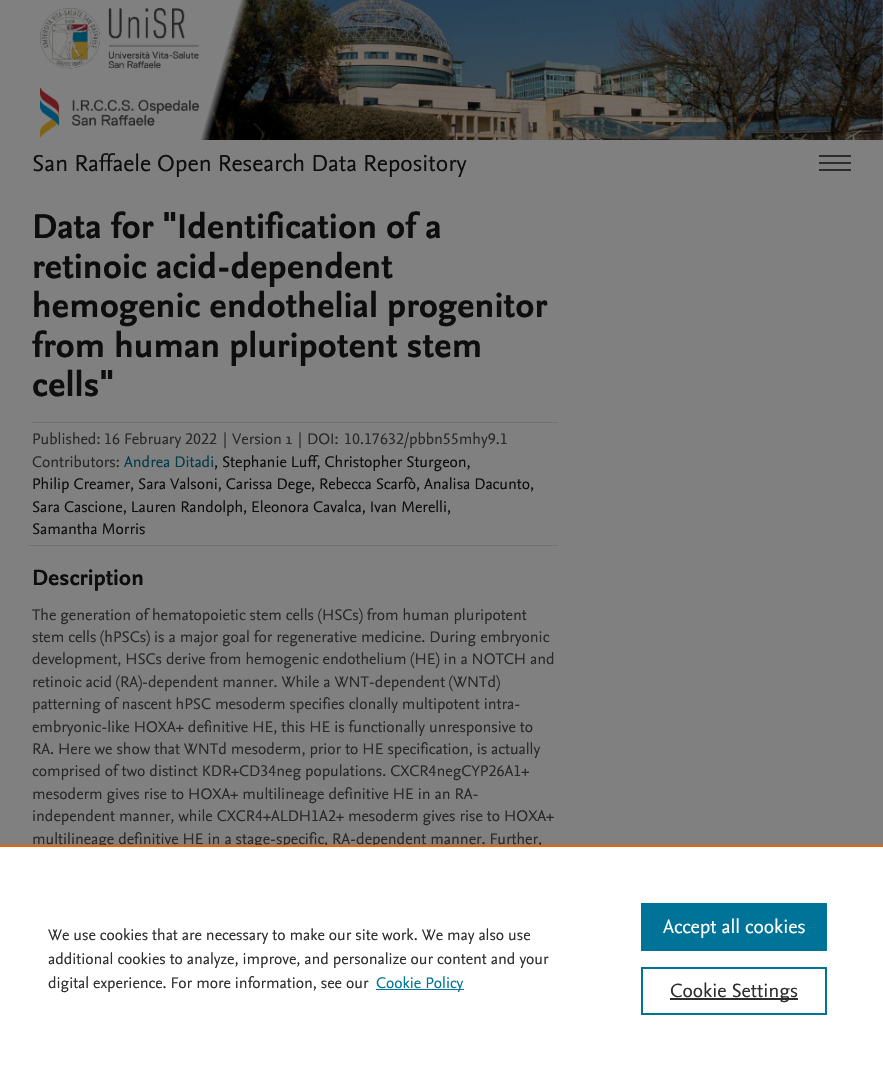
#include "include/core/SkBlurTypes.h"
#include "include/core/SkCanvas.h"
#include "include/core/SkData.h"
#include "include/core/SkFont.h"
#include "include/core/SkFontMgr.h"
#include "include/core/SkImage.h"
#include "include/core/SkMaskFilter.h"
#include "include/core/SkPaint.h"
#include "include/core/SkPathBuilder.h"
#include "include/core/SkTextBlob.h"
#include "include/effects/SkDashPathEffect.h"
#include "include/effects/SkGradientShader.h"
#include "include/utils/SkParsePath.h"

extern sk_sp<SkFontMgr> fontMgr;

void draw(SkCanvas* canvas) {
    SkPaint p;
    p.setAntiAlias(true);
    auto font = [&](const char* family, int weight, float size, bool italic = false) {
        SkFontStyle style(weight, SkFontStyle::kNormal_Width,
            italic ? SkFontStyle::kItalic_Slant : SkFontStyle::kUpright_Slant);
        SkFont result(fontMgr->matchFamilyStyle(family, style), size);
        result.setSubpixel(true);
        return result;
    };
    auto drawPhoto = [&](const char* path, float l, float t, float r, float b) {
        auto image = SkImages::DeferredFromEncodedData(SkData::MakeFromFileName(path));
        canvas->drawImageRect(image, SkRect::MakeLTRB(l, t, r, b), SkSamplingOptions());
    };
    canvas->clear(0xFF808080);
    drawPhoto("media/1.png", 0, 0, 883, 140);
    drawPhoto("media/2.png", 40, 8, 199, 138);
    auto font1 = font("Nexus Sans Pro", 400, 24);
    p.setColor(0xFF0D0D0D);
    canvas->drawString("San Raffaele Open Research Data Repository", 32, 171, font1, p);
    canvas->save();
    canvas->clipRect(SkRect::MakeLTRB(819, 155, 851, 173));
    p.setColor(0xFF2A2B2D);
    canvas->drawPath(SkPathBuilder().moveTo(819, 169).lineTo(859, 169).lineTo(859, 171).lineTo(819, 171).close().moveTo(819, 162).lineTo(859, 162).lineTo(859, 164).lineTo(819, 164).close().moveTo(819, 155).lineTo(859, 155).lineTo(859, 157).lineTo(819, 157).close().detach(), p);
    canvas->restore();
    auto font2 = font("Nexus Sans Pro", 700, 36);
    p.setColor(0xFF0D0D0D);
    {
        const struct { const char* s; float x, y; } items[] = {
            {"Data for \"Identification of a", 32, 238},
            {"retinoic acid-dependent", 32, 278},
            {"hemogenic endothelial progenitor", 32, 317},
            {"from human pluripotent stem", 32, 357},
            {"cells\"", 32, 396},
        };
        for (auto [s, x, y] : items) {
            canvas->drawString(s, x, y, font2, p);
        }
    }
    p.setColor(0xFF727272);
    canvas->drawRect(SkRect::MakeLTRB(32, 422, 558, 423), p);
    auto font3 = font("Nexus Sans Pro", 400, 16);
    p.setColor(0xFF282828);
    canvas->drawString("Published:", 32, 444, font3, p);
    auto font4 = font("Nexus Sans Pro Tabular", 400, 16);
    canvas->drawString("16 February 2022", 104, 444, font4, p);
    {
        const struct { const char* s; float x, y; } items[] = {
            {"|", 223, 444},
            {"Version 1", 232, 444},
            {"|", 298, 444},
            {"DOI:", 307, 444},
        };
        for (auto [s, x, y] : items) {
            canvas->drawString(s, x, y, font3, p);
        }
    }
    canvas->drawString("10.17632/pbbn55mhy9.1", 344, 444, font4, p);
    p.setColor(0xFF727272);
    canvas->drawRect(SkRect::MakeLTRB(28, 545, 558, 546), p);
    p.setColor(0xFF282828);
    canvas->drawString("Contributors:", 32, 467, font3, p);
    p.setColor(0xFF003A4C);
    canvas->drawString("Andrea Ditadi", 124, 467, font3, p);
    p.setColor(0xFF0D0D0D);
    {
        const struct { const char* s; float x, y; } items[] = {
            {", Stephanie Luff, Christopher Sturgeon,", 214, 467},
            {"Philip Creamer, Sara Valsoni, Carissa Dege, Rebecca Scarfò, Analisa Dacunto,", 32, 489},
            {"Sara Cascione, Lauren Randolph, Eleonora Cavalca, Ivan Merelli,", 32, 512},
            {"Samantha Morris", 32, 534},
        };
        for (auto [s, x, y] : items) {
            canvas->drawString(s, x, y, font3, p);
        }
    }
    auto font5 = font("Nexus Sans Pro", 700, 23);
    canvas->drawString("Description", 32, 585, font5, p);
    p.setColor(0xFF282828);
    {
        const struct { const char* s; float x, y; } items[] = {
            {"The generation of hematopoietic stem cells (HSCs) from human pluripotent", 32, 620},
            {"stem cells (hPSCs) is a major goal for regenerative medicine. During embryonic", 32, 642},
            {"development, HSCs derive from hemogenic endothelium (HE) in a NOTCH and", 32, 664},
            {"retinoic acid (RA)-dependent manner. While a WNT-dependent (WNTd)", 32, 687},
            {"patterning of nascent hPSC mesoderm specifies clonally multipotent intra-", 32, 709},
            {"embryonic-like HOXA+ definitive HE, this HE is functionally unresponsive to", 32, 732},
            {"RA. Here we show that WNTd mesoderm, prior to HE specification, is actually", 32, 754},
        };
        for (auto [s, x, y] : items) {
            canvas->drawString(s, x, y, font3, p);
        }
    }
    canvas->drawString("comprised of two distinct KDR+CD34neg populations. CXCR4negCYP26A1+", 32, 776, font4, p);
    canvas->drawString("mesoderm gives rise to HOXA+ multilineage definitive HE in an RA-", 32, 799, font3, p);
    canvas->drawString("independent manner, while CXCR4+ALDH1A2+ mesoderm gives rise to HOXA+", 32, 821, font4, p);
    canvas->drawString("multilineage definitive HE in a stage-specific, RA-dependent manner. Further,", 32, 844, font3, p);
    p.setColor(0xFFFFFFFF);
    canvas->drawRect(SkRect::MakeLTRB(0, 847, 883, 1071), p);
    p.setColor(0xFFEB6500);
    canvas->drawRect(SkRect::MakeLTRB(0, 845, 883, 847), p);
    p.setColor(0xFF2E2E2E);
    {
        const struct { const char* s; float x, y; } items[] = {
            {"We use cookies that are necessary to make our site work. We may also use", 48, 940},
            {"additional cookies to analyze, improve, and personalize our content and your", 48, 964},
            {"digital experience. For more information, see our", 48, 988},
        };
        for (auto [s, x, y] : items) {
            canvas->drawString(s, x, y, font3, p);
        }
    }
    p.setColor(0xFF007398);
    canvas->drawRect(SkRect::MakeLTRB(376, 989, 464, 990), p);
    canvas->drawString("Cookie Policy", 376, 988, font3, p);
    canvas->drawRect(SkRect::MakeLTRB(641, 903, 827, 951), p);
    auto font6 = font("Nexus Sans Pro", 400, 20);
    p.setColor(0xFFFFFFFF);
    canvas->drawString("Accept all cookies", 663, 933, font6, p);
    p.setStyle(SkPaint::kStroke_Style);
    p.setStrokeWidth(2);
    p.setColor(0xFF007398);
    canvas->drawRect(SkRect::MakeLTRB(642, 968, 826, 1014), p);
    p.setStyle(SkPaint::kFill_Style);
    p.setColor(0xFF2E2E2E);
    canvas->drawRect(SkRect::MakeLTRB(670, 998, 798, 1000), p);
    canvas->drawString("Cookie Settings", 670, 997, font6, p);
}
